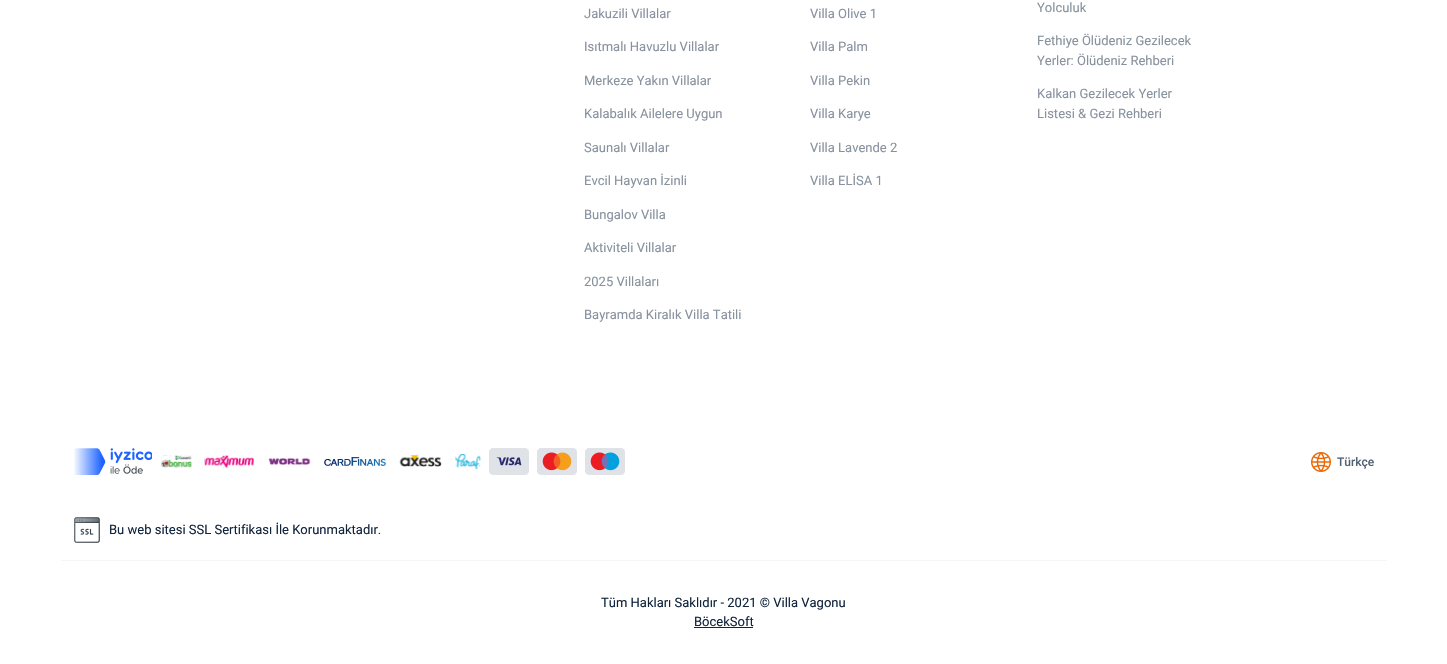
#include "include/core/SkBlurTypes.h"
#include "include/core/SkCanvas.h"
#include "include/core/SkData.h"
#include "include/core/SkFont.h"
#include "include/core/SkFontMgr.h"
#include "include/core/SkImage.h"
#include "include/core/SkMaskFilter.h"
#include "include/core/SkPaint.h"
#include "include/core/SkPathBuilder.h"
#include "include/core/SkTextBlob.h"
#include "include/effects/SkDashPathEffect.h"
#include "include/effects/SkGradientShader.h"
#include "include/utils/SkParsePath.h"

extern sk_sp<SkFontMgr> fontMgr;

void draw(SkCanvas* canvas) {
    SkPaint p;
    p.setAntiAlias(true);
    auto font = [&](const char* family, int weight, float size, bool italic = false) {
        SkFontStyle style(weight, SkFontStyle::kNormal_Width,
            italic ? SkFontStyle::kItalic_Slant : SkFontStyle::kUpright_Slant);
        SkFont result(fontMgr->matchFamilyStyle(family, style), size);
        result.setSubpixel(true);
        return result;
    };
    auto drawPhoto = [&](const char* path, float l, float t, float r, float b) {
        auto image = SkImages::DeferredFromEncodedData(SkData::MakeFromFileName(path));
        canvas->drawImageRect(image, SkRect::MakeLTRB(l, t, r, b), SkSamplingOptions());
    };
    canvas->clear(0xFFFFFFFF);
    auto font1 = font("Roboto", 400, 13);
    p.setColor(0xFF88929E);
    {
        const struct { const char* s; float x, y; } items[] = {
            {"Jakuzili Villalar", 584, 18},
            {"Isıtmalı Havuzlu Villalar", 584, 51},
            {"Merkeze Yakın Villalar", 584, 85},
            {"Kalabalık Ailelere Uygun", 584, 118},
            {"Saunalı Villalar", 584, 152},
            {"Evcil Hayvan İzinli", 584, 185},
            {"Bungalov Villa", 584, 219},
            {"Aktiviteli Villalar", 584, 252},
            {"2025 Villaları", 584, 286},
            {"Bayramda Kiralık Villa Tatili", 584, 319},
            {"Villa Olive 1", 810, 18},
            {"Villa Palm", 810, 51},
            {"Villa Pekin", 810, 85},
            {"Villa Karye", 810, 118},
            {"Villa Lavende 2", 810, 152},
            {"Villa ELİSA 1", 810, 185},
            {"Yolculuk", 1037, 12},
            {"Fethiye Ölüdeniz Gezilecek", 1037, 45},
            {"Yerler: Ölüdeniz Rehberi", 1037, 65},
            {"Kalkan Gezilecek Yerler", 1037, 98},
            {"Listesi & Gezi Rehberi", 1037, 118},
        };
        for (auto [s, x, y] : items) {
            canvas->drawString(s, x, y, font1, p);
        }
    }
    p.setColor(0xFFF3F6F9);
    canvas->drawRect(SkRect::MakeLTRB(61, 560, 1387, 561), p);
    drawPhoto("media/1.png", 74, 448, 152, 475);
    drawPhoto("media/2.png", 161, 454, 481, 469);
    drawPhoto("media/3.png", 489, 448, 529, 475);
    drawPhoto("media/4.png", 537, 448, 577, 475);
    drawPhoto("media/5.png", 585, 448, 625, 475);
    drawPhoto("media/6.png", 1311, 452, 1331, 472);
    auto font2 = font("Roboto", 500, 12);
    p.setColor(0xFF516276);
    canvas->drawString("Türkçe", 1337, 466, font2, p);
    drawPhoto("media/7.png", 74, 517, 100, 543);
    p.setColor(0xFF11253C);
    {
        const struct { const char* s; float x, y; } items[] = {
            {"Bu web sitesi SSL Sertifikası İle Korunmaktadır.", 109, 534},
            {"Tüm Hakları Saklıdır - 2021 © Villa Vagonu", 601, 607},
            {"BöcekSoft", 694, 626},
        };
        for (auto [s, x, y] : items) {
            canvas->drawString(s, x, y, font1, p);
        }
    }
    canvas->drawRect(SkRect::MakeLTRB(694, 627, 753, 628), p);
}
